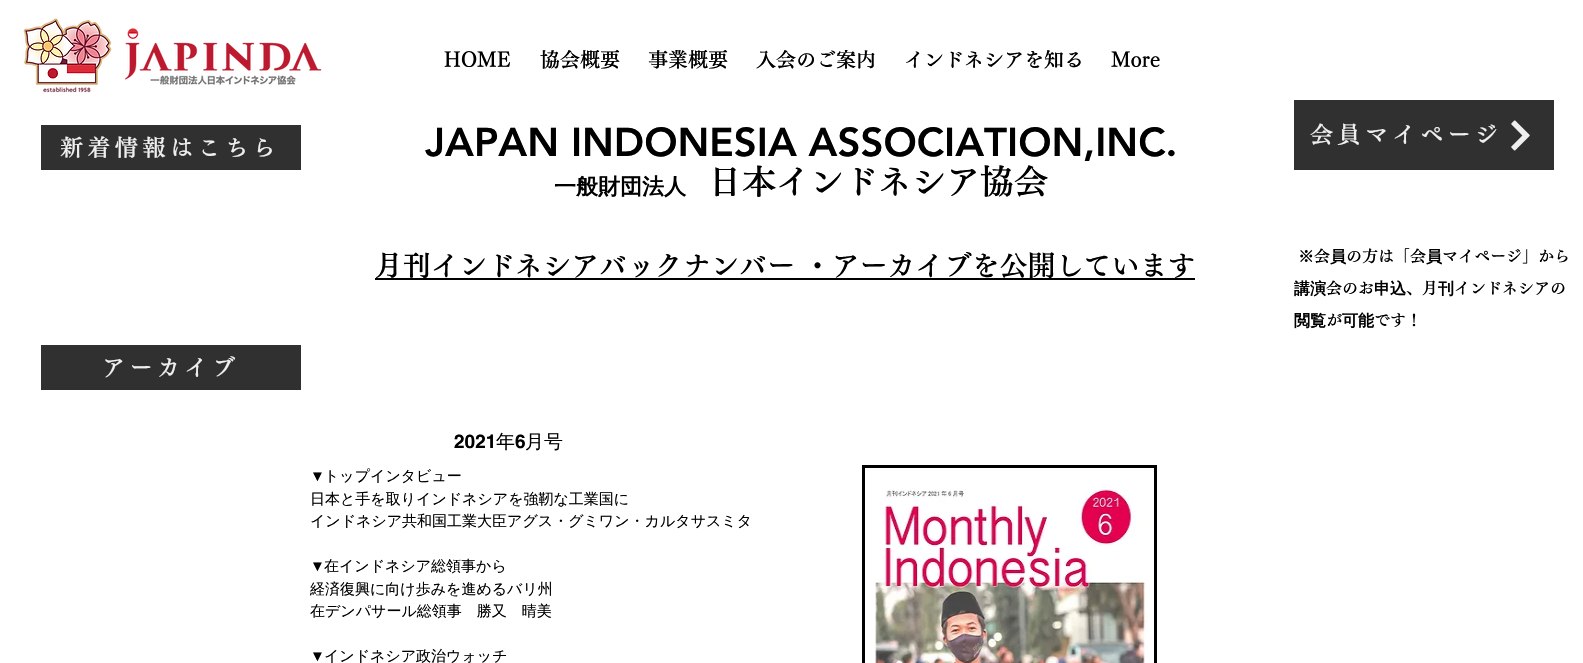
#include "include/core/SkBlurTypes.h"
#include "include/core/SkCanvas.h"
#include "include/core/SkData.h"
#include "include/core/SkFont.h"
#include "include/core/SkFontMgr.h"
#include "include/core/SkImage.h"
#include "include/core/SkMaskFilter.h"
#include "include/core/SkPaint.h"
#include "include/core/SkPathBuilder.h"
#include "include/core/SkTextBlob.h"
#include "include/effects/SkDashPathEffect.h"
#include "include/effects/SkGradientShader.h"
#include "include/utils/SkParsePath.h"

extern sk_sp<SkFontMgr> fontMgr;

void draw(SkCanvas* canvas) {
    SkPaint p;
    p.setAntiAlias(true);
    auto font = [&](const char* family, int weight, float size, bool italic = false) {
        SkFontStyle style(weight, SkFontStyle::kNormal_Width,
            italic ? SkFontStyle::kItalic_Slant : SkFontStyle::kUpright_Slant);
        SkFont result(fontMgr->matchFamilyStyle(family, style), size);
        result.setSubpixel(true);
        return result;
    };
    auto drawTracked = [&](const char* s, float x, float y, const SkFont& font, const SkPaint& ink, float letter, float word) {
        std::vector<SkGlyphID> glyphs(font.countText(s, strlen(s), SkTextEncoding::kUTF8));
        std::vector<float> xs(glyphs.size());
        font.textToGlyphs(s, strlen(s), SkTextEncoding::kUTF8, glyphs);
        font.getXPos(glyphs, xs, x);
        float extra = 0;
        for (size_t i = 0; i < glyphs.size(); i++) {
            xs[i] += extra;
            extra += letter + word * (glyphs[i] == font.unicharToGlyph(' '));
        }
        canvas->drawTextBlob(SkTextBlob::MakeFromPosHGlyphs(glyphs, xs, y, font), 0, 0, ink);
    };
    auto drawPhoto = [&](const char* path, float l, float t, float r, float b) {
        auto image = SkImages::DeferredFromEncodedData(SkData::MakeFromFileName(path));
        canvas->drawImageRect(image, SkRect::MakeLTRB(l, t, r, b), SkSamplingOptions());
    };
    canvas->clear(0xFFFFFFFF);
    drawPhoto("media/1.png", 23, 18, 322, 93);
    auto font1 = font("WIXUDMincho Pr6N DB", 600, 20);
    p.setColor(0xFF000000);
    {
        const struct { const char* s; float x, y; } items[] = {
            {"HOME", 444, 67},
            {"協会概要", 540, 67},
            {"事業概要", 648, 67},
            {"入会のご案内", 756, 67},
            {"インドネシアを知る", 904, 67},
            {"More", 1111, 67},
        };
        for (auto [s, x, y] : items) {
            canvas->drawString(s, x, y, font1, p);
        }
    }
    p.setColor(0xFF303030);
    canvas->drawRect(SkRect::MakeLTRB(41, 125, 301, 170), p);
    auto font2 = font("WIXUDMincho Pr6N DB", 600, 23);
    p.setColor(0xFFEFEFEF);
    drawTracked("新着情報はこちら", 60, 156, font2, p, 4.5f, 0);
    auto font3 = font("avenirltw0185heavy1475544", 900, 40);
    p.setColor(0xFF000000);
    canvas->drawString("JAPAN INDONESIA ASSOCIATION,INC.", 425, 156, font3, p);
    auto font4 = font("WenQuanYi Zen Hei", 700, 22);
    canvas->drawString("一般財団法人", 554, 194, font4, p);
    auto font5 = font("WIXUDMincho Pr6N DB", 600, 34);
    canvas->drawString("日本インドネシア協会", 708, 194, font5, p);
    p.setColor(0xFF303030);
    canvas->drawRect(SkRect::MakeLTRB(1294, 100, 1554, 170), p);
    p.setColor(0xFFEFEFEF);
    drawTracked("会員マイページ", 1310, 143, font2, p, 4.5f, 0);
    drawPhoto("media/2.png", 1511, 120, 1530, 151);
    p.setColor(0xFF000000);
    canvas->drawRect(SkRect::MakeLTRB(375, 278, 1195, 280), p);
    auto font6 = font("WIXUDMincho Pr6N DB", 600, 28);
    canvas->drawString("月刊インドネシアバックナンバー ・アーカイブを公開しています", 375, 276, font6, p);
    auto font7 = font("WenQuanYi Zen Hei", 700, 16);
    canvas->drawString("※", 1298, 262, font7, p);
    auto font8 = font("WIXUDMincho Pr6N DB", 600, 16);
    canvas->drawString("会", 1314, 262, font8, p);
    canvas->drawString("員", 1330, 262, font7, p);
    canvas->drawString("の方は「会", 1346, 262, font8, p);
    canvas->drawString("員", 1426, 262, font7, p);
    canvas->drawString("マイページ」から", 1442, 262, font8, p);
    canvas->drawString("講演", 1294, 294, font7, p);
    canvas->drawString("会のお", 1326, 294, font8, p);
    canvas->drawString("申込", 1374, 294, font7, p);
    canvas->drawString("、月", 1406, 294, font8, p);
    canvas->drawString("刊", 1438, 294, font7, p);
    canvas->drawString("インドネシアの", 1454, 294, font8, p);
    canvas->drawString("閲覧", 1294, 326, font7, p);
    canvas->drawString("が", 1326, 326, font8, p);
    canvas->drawString("可能", 1342, 326, font7, p);
    canvas->drawString("です！", 1374, 326, font8, p);
    p.setColor(0xFF303030);
    canvas->drawRect(SkRect::MakeLTRB(41, 345, 301, 390), p);
    p.setColor(0xFFEFEFEF);
    drawTracked("アーカイブ", 102, 376, font2, p, 4.5f, 0);
    auto font9 = font("helvetica", 700, 19);
    p.setColor(0xFF000000);
    canvas->drawString("2021", 454, 448, font9, p);
    auto font10 = font("WenQuanYi Zen Hei", 500, 19);
    canvas->drawString("年", 496, 448, font10, p);
    canvas->drawString("6", 515, 448, font9, p);
    canvas->drawString("月号", 525, 448, font10, p);
    auto font11 = font("Liberation Sans", 400, 15);
    canvas->drawString("▼", 310, 481, font11, p);
    auto font12 = font("WenQuanYi Zen Hei", 500, 15);
    {
        const struct { const char* s; float x, y; } items[] = {
            {"トップインタビュー", 324, 481},
            {"日本と手を取りインドネシアを強靭な工業国に", 310, 504},
            {"インドネシア共和国工業大臣アグス・グミワン・カルタサスミタ", 310, 526},
        };
        for (auto [s, x, y] : items) {
            canvas->drawString(s, x, y, font12, p);
        }
    }
    canvas->drawString("▼", 310, 571, font11, p);
    {
        const struct { const char* s; float x, y; } items[] = {
            {"在インドネシア総領事から", 324, 571},
            {"経済復興に向け歩みを進めるバリ州", 310, 594},
            {"在デンパサール総領事　勝又　晴美", 310, 616},
        };
        for (auto [s, x, y] : items) {
            canvas->drawString(s, x, y, font12, p);
        }
    }
    canvas->drawString("▼", 310, 661, font11, p);
    canvas->drawString("インドネシア政治ウォッチ", 324, 661, font12, p);
    p.setStyle(SkPaint::kStroke_Style);
    p.setStrokeWidth(3);
    canvas->drawRect(SkRect::MakeLTRB(863.5f, 466.5f, 1155.5f, 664.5f), p);
    drawPhoto("media/3.png", 875, 489, 1148, 663);
}
